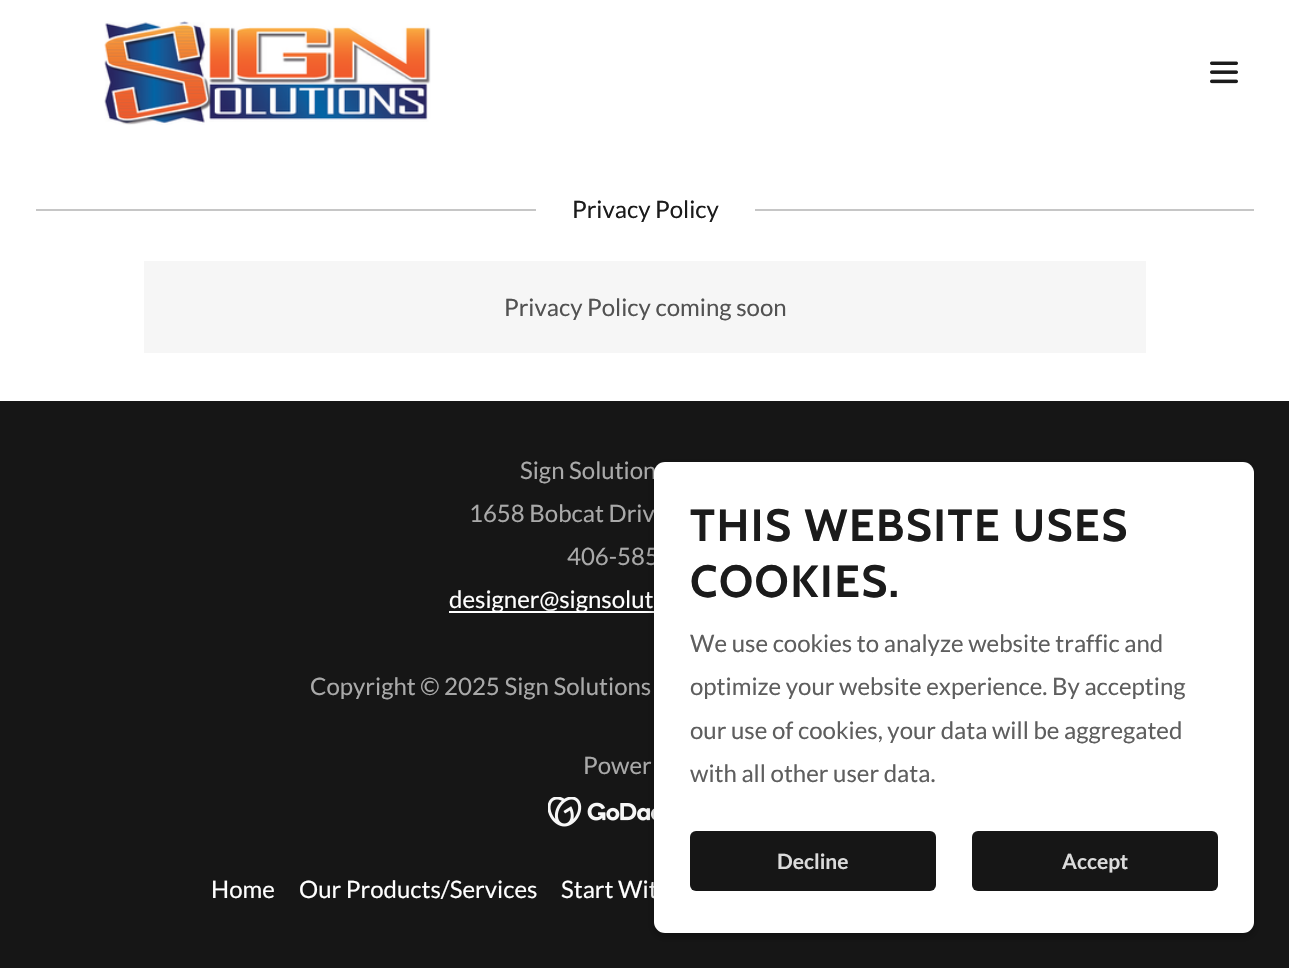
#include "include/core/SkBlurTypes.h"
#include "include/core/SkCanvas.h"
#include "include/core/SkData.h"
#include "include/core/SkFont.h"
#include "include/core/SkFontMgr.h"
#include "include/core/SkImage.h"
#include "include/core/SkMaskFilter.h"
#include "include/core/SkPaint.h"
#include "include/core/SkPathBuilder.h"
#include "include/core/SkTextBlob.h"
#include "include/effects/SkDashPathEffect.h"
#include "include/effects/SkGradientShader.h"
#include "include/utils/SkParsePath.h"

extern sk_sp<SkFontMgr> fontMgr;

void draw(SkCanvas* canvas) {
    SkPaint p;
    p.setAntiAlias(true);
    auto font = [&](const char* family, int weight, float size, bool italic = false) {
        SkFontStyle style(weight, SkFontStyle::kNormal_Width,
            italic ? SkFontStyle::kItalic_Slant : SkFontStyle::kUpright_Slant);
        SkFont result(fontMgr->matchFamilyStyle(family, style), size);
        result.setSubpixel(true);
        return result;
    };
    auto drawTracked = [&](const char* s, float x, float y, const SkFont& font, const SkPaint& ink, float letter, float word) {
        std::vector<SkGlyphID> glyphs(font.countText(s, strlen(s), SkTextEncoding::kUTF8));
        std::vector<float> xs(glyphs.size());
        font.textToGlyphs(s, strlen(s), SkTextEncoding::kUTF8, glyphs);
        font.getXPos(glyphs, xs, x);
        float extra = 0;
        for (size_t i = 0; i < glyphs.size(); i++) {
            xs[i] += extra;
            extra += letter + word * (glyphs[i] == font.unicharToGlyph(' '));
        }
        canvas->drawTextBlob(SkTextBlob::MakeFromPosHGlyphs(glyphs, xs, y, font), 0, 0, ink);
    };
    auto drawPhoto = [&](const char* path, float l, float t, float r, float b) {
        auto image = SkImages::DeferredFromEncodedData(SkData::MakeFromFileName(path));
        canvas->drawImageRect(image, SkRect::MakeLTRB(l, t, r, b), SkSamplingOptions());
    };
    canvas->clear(0xFF161616);
    p.setColor(0xFFFFFFFF);
    canvas->drawRect(SkRect::MakeLTRB(0, 0, 1289, 401), p);
    drawPhoto("media/1.png", 104, 21, 431, 125);
    drawPhoto("media/2.png", 1210, 61, 1238, 84);
    p.setColor(0xFFC6C6C6);
    canvas->drawRect(SkRect::MakeLTRB(36, 209, 536, 211), p);
    auto font1 = font("Lato", 400, 24);
    p.setColor(0xFF1B1B1B);
    canvas->drawString("Privacy Policy", 572, 218, font1, p);
    p.setColor(0xFFC6C6C6);
    canvas->drawRect(SkRect::MakeLTRB(755, 209, 1254, 211), p);
    p.setColor(0xFFF6F6F6);
    canvas->drawRect(SkRect::MakeLTRB(144, 261, 1146, 353), p);
    p.setColor(0xFF525252);
    canvas->drawString("Privacy Policy coming soon", 504, 316, font1, p);
    p.setColor(0xFFA9A9A9);
    {
        const struct { const char* s; float x, y; } items[] = {
            {"Sign Solution", 520, 479},
            {"1658 Bobcat Driv", 469, 522},
            {"406-585", 567, 565},
        };
        for (auto [s, x, y] : items) {
            canvas->drawString(s, x, y, font1, p);
        }
    }
    p.setColor(0xFFFFFFFF);
    canvas->drawRect(SkRect::MakeLTRB(449, 611, 654, 613), p);
    canvas->drawString("designer@signsolut", 449, 608, font1, p);
    p.setColor(0xFFA9A9A9);
    canvas->drawString("Copyright © 2025 Sign Solutions", 310, 695, font1, p);
    canvas->drawString("Power", 583, 774, font1, p);
    drawPhoto("media/3.png", 548, 797, 654, 827);
    p.setColor(0xFFFFFFFF);
    {
        const struct { const char* s; float x, y; } items[] = {
            {"Home", 211, 898},
            {"Our Products/Services", 299, 898},
            {"Start Wit", 561, 898},
        };
        for (auto [s, x, y] : items) {
            canvas->drawString(s, x, y, font1, p);
        }
    }
    p.setColor(0x4D000000);
    p.setMaskFilter(SkMaskFilter::MakeBlur(kNormal_SkBlurStyle, 4.5f));
    canvas->drawRoundRect(SkRect::MakeLTRB(654, 465, 1254, 936), 11, 11, p);
    p.setMaskFilter(nullptr);
    p.setColor(0xFFFFFFFF);
    canvas->drawRoundRect(SkRect::MakeLTRB(654, 462, 1254, 933), 11, 11, p);
    auto font2 = font("Cabin", 700, 45);
    p.setColor(0xFF1B1B1B);
    drawTracked("THIS WEBSITE USES", 690, 541, font2, p, 1.5f, 0);
    drawTracked("COOKIES.", 690, 597, font2, p, 1.5f, 0);
    p.setColor(0xFF5E5E5E);
    {
        const struct { const char* s; float x, y; } items[] = {
            {"We use cookies to analyze website traffic and", 690, 652},
            {"optimize your website experience. By accepting", 690, 695},
            {"our use of cookies, your data will be aggregated", 690, 739},
            {"with all other user data.", 690, 782},
        };
        for (auto [s, x, y] : items) {
            canvas->drawString(s, x, y, font1, p);
        }
    }
    p.setColor(0xFF161616);
    canvas->drawRoundRect(SkRect::MakeLTRB(690, 831, 936, 891), 6, 6, p);
    auto font3 = font("Lato", 700, 21);
    p.setColor(0xFFDBDBDB);
    canvas->drawString("Decline", 777, 869, font3, p);
    p.setColor(0xFF161616);
    canvas->drawRoundRect(SkRect::MakeLTRB(972, 831, 1218, 891), 6, 6, p);
    p.setColor(0xFFDBDBDB);
    canvas->drawString("Accept", 1062, 869, font3, p);
}
